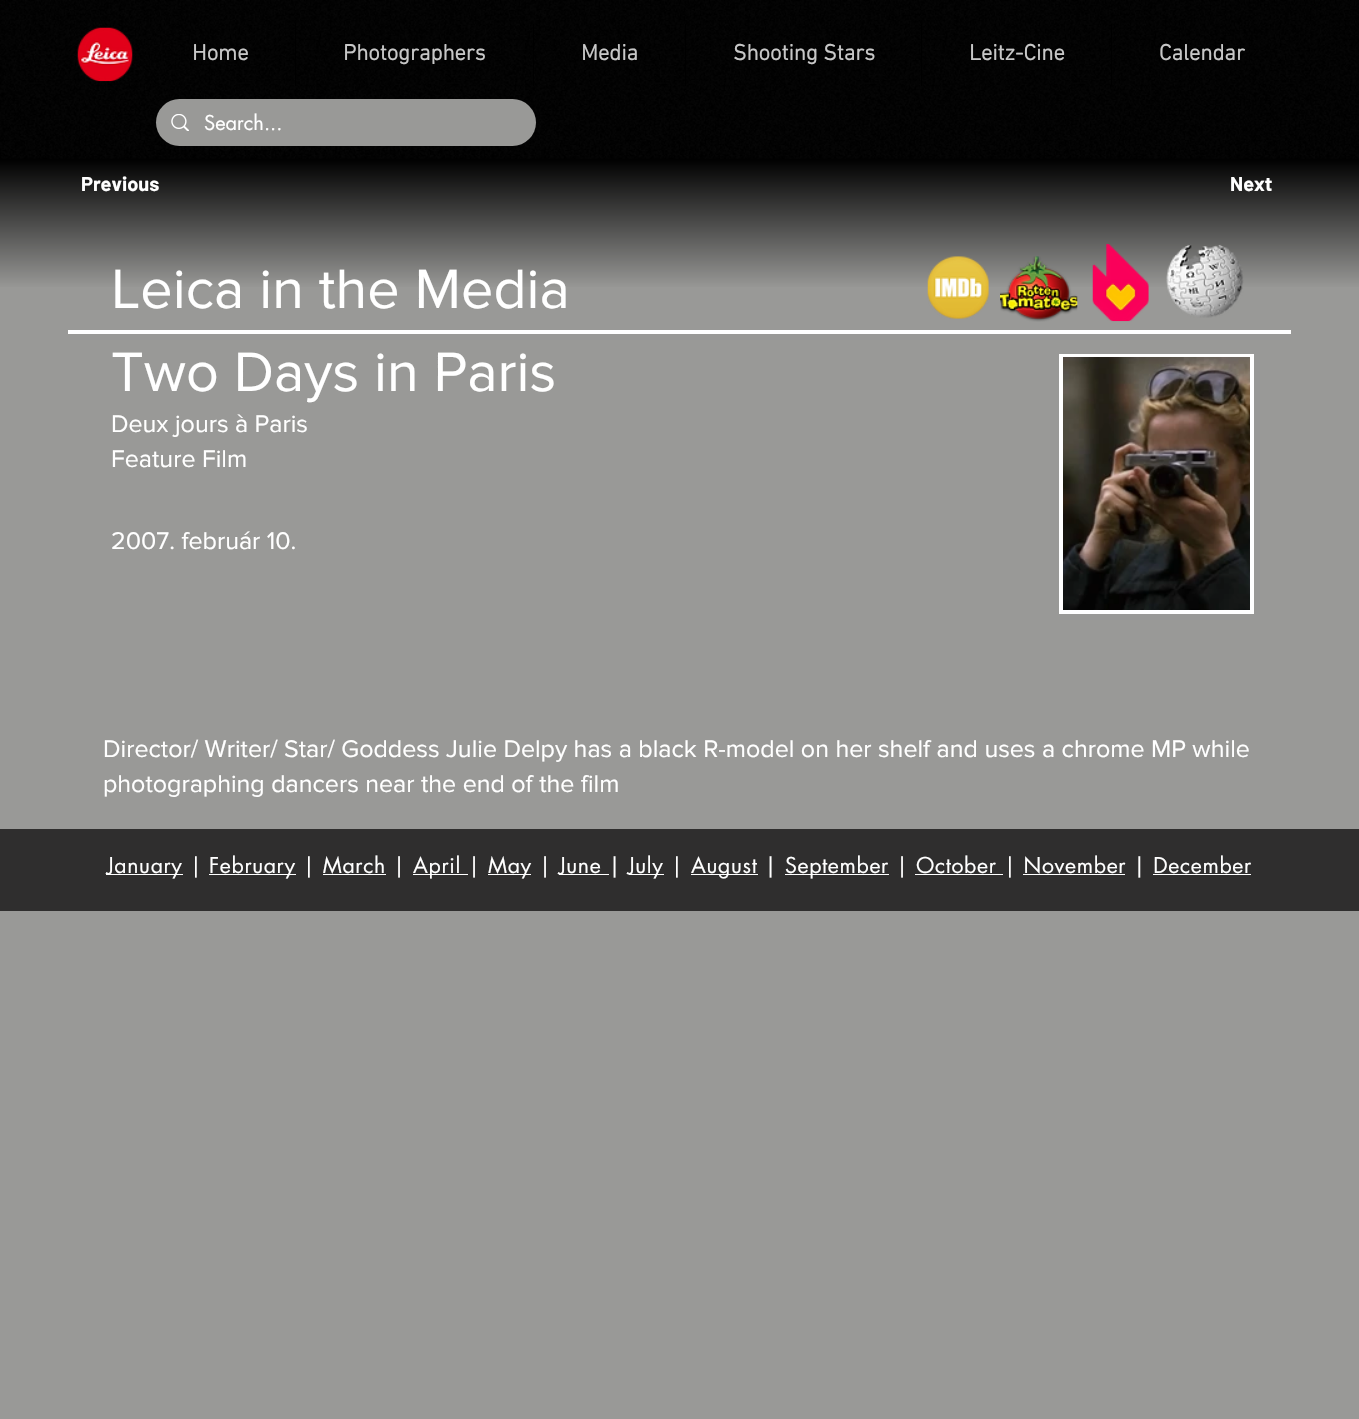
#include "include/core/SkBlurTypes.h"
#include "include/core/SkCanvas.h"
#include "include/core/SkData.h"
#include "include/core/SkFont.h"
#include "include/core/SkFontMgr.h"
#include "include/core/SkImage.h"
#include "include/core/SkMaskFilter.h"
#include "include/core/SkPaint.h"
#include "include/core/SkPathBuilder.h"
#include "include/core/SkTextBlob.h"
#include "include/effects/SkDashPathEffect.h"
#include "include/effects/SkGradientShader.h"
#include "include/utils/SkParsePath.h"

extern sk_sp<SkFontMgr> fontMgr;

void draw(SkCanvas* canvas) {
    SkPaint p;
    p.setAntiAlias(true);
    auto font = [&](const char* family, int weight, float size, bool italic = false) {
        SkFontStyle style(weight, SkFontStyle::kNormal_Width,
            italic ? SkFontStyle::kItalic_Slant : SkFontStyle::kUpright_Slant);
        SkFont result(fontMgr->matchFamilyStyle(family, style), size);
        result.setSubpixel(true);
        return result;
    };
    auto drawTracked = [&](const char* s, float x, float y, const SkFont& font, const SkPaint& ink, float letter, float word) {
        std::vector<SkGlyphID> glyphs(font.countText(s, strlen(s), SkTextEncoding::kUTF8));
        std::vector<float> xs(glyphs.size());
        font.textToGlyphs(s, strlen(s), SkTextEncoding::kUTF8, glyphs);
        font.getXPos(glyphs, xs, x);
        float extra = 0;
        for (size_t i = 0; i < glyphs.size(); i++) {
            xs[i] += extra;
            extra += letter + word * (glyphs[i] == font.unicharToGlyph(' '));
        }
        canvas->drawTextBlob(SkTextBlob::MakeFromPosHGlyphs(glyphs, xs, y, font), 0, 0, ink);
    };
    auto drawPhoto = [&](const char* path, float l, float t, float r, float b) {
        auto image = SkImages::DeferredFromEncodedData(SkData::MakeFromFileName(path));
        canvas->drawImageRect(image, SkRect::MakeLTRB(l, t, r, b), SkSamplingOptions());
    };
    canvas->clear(0xFF999997);
    {
        const SkColor colors[] = {0xFF000000, 0xFF999997};
        const float stops[] = {0, 1};
        const SkPoint ends[] = {{680, 159}, {680, 289}};
        p.setShader(SkGradientShader::MakeLinear(ends, colors, stops, 2, SkTileMode::kClamp));
        p.setAlpha(255);
    }
    canvas->drawRect(SkRect::MakeLTRB(0, 159, 1359, 287), p);
    p.setShader(nullptr);
    p.setColor(0xB3000000);
    p.setMaskFilter(SkMaskFilter::MakeBlur(kNormal_SkBlurStyle, 3));
    canvas->drawRect(SkRect::MakeLTRB(0, 0, 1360, 159), p);
    p.setMaskFilter(nullptr);
    p.setColor(0xFF000000);
    canvas->drawRect(SkRect::MakeLTRB(0, 0, 1359, 159), p);
    drawPhoto("media/1.png", 0, 0, 1359, 159);
    drawPhoto("media/2.png", 77, 27, 133, 82);
    auto font1 = font("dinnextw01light", 700, 22.5f);
    p.setColor(0xFFC7C7C7);
    canvas->drawString("Home", 192, 60, font1, p);
    p.setColor(0xFF000000);
    canvas->drawRect(SkRect::MakeLTRB(295, 24, 296, 86), p);
    p.setColor(0xFFC7C7C7);
    canvas->drawString("Photographers", 343, 60, font1, p);
    p.setColor(0xFF000000);
    canvas->drawRect(SkRect::MakeLTRB(533, 24, 534, 86), p);
    p.setColor(0xFFC7C7C7);
    canvas->drawString("Media", 581, 60, font1, p);
    p.setColor(0xFF000000);
    canvas->drawRect(SkRect::MakeLTRB(685, 24, 686, 86), p);
    p.setColor(0xFFC7C7C7);
    canvas->drawString("Shooting Stars", 733, 60, font1, p);
    p.setColor(0xFF000000);
    canvas->drawRect(SkRect::MakeLTRB(921, 24, 922, 86), p);
    p.setColor(0xFFC7C7C7);
    canvas->drawString("Leitz-Cine", 969, 60, font1, p);
    p.setColor(0xFF000000);
    canvas->drawRect(SkRect::MakeLTRB(1111, 24, 1112, 86), p);
    p.setColor(0xFFC7C7C7);
    canvas->drawString("Calendar", 1159, 60, font1, p);
    p.setColor(0xFF999997);
    canvas->drawRoundRect(SkRect::MakeLTRB(156, 99, 536, 146), 23.5f, 23.5f, p);
    drawPhoto("media/3.png", 171, 114, 189, 131);
    auto font2 = font("futura", 400, 20);
    p.setColor(0xFFFFFFFF);
    canvas->drawString("Search...", 204, 130, font2, p);
    auto font3 = font("Barlow", 700, 20);
    canvas->drawString("Previous", 81, 191, font3, p);
    canvas->drawString("Next", 1230, 191, font3, p);
    auto font4 = font("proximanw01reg", 400, 57.5f);
    canvas->drawString("Leica in the Media", 111, 308, font4, p);
    canvas->drawRect(SkRect::MakeLTRB(68, 330, 1291, 334), p);
    canvas->drawString("Two Days in Paris", 111, 391, font4, p);
    auto font5 = font("proximanw01reg", 400, 25);
    {
        const struct { const char* s; float x, y; } items[] = {
            {"Deux jours à Paris", 111, 432},
            {"Feature Film", 111, 467},
            {"2007. február 10.", 111, 549},
        };
        for (auto [s, x, y] : items) {
            canvas->drawString(s, x, y, font5, p);
        }
    }
    drawPhoto("media/4.png", 927, 256, 989, 319);
    drawPhoto("media/5.png", 1000, 256, 1078, 322);
    drawPhoto("media/6.png", 1092, 243, 1149, 322);
    drawPhoto("media/7.png", 1166, 244, 1244, 318);
    p.setStyle(SkPaint::kStroke_Style);
    p.setStrokeWidth(4);
    canvas->drawRect(SkRect::MakeLTRB(1061, 356, 1252, 612), p);
    drawPhoto("media/8.png", 1063, 357, 1250, 610);
    p.setStyle(SkPaint::kFill_Style);
    canvas->drawString("Director/ Writer/ Star/ Goddess Julie Delpy has a black R-model on her shelf and uses a chrome MP while", 103, 757, font5, p);
    canvas->drawString("photographing dancers near the end of the film", 103, 792, font5, p);
    p.setColor(0xFF2F2E2E);
    canvas->drawRect(SkRect::MakeLTRB(0, 829, 1359, 911), p);
    p.setColor(0xFFFFFFFF);
    canvas->drawRect(SkRect::MakeLTRB(106, 874, 183, 875), p);
    auto font6 = font("futura", 400, 21.25f);
    drawTracked("January |", 107, 873, font6, p, 0.65f, 0);
    canvas->drawRect(SkRect::MakeLTRB(209, 874, 296, 875), p);
    drawTracked("February | March |", 209, 873, font6, p, 0.65f, 0);
    canvas->drawRect(SkRect::MakeLTRB(323, 874, 386, 875), p);
    canvas->drawRect(SkRect::MakeLTRB(413, 874, 468, 875), p);
    drawTracked("April |", 413, 873, font6, p, 0.65f, 0);
    canvas->drawRect(SkRect::MakeLTRB(488, 874, 531, 875), p);
    drawTracked("May |", 488, 873, font6, p, 0.65f, 0);
    canvas->drawRect(SkRect::MakeLTRB(559, 874, 609, 875), p);
    drawTracked("June |", 559, 873, font6, p, 0.65f, 0);
    canvas->drawRect(SkRect::MakeLTRB(629, 874, 664, 875), p);
    drawTracked("July |", 628, 873, font6, p, 0.65f, 0);
    canvas->drawRect(SkRect::MakeLTRB(691, 874, 758, 875), p);
    drawTracked("August |", 691, 873, font6, p, 0.65f, 0);
    canvas->drawRect(SkRect::MakeLTRB(785, 874, 889, 875), p);
    drawTracked("September | October | November | December", 785, 873, font6, p, 0.65f, 0);
    {
        const struct { float l, t, r, b; SkColor color; } items[] = {
            {915, 874, 1003, 875, 0xFFFFFFFF},
            {1023, 874, 1125, 875, 0xFFFFFFFF},
            {1153, 874, 1251, 875, 0xFFFFFFFF},
        };
        for (auto [l, t, r, b, color] : items) {
            p.setColor(color);
            canvas->drawRect(SkRect::MakeLTRB(l, t, r, b), p);
        }
    }
}
